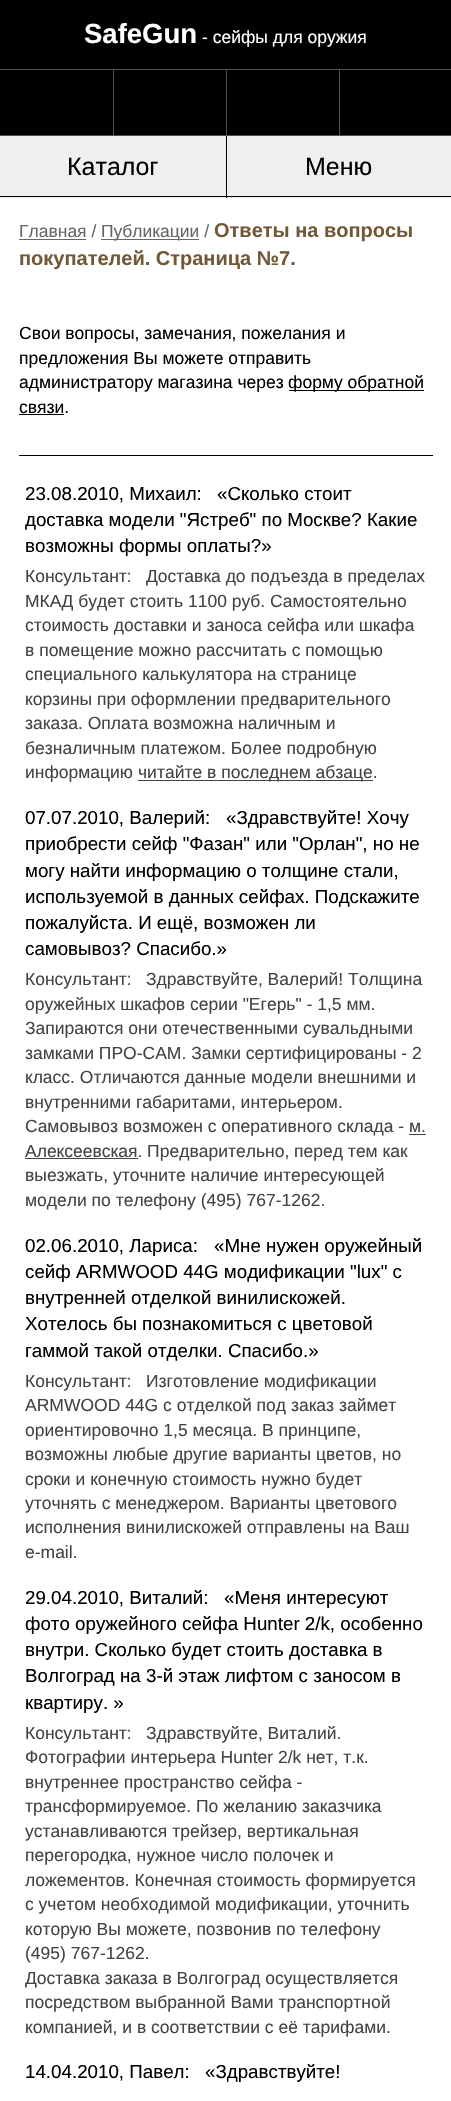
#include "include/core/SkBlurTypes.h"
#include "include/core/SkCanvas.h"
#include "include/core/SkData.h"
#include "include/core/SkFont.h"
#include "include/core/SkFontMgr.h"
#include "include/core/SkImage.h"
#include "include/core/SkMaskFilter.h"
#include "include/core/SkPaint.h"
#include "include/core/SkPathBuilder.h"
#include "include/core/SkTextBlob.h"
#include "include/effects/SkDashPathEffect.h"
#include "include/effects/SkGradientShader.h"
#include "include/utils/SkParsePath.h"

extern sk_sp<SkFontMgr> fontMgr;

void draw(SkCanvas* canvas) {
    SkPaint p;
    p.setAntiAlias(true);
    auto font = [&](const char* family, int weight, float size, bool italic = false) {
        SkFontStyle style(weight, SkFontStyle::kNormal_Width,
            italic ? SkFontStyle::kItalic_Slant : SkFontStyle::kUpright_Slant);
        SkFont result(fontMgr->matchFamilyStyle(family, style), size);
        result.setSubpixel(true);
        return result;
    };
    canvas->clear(0xFFFFFFFF);
    p.setColor(0xFF000000);
    canvas->drawRect(SkRect::MakeLTRB(0, 0, 451, 135), p);
    auto font1 = font("Liberation Sans", 700, 27.5f);
    p.setColor(0xFFFFFFFF);
    canvas->drawString("SafeGun", 84, 43, font1, p);
    auto font2 = font("Liberation Sans", 400, 17.5f);
    canvas->drawString("- сейфы для оружия", 202, 43, font2, p);
    {
        const struct { float l, t, r, b; SkColor color; } items[] = {
            {0, 69, 451, 70, 0xFF525252},
            {0, 135, 451, 136, 0xFF525252},
            {113, 70, 114, 135, 0xFF525252},
            {226, 70, 227, 135, 0xFF525252},
            {339, 70, 340, 135, 0xFF525252},
            {0, 136, 226, 198, 0xFFEFEFEF},
            {0, 196, 226, 197, 0xFF000000},
        };
        for (auto [l, t, r, b, color] : items) {
            p.setColor(color);
            canvas->drawRect(SkRect::MakeLTRB(l, t, r, b), p);
        }
    }
    auto font3 = font("Liberation Sans", 400, 25);
    canvas->drawString("Каталог", 67, 175, font3, p);
    {
        const struct { float l, t, r, b; SkColor color; } items[] = {
            {227, 136, 451, 198, 0xFFEFEFEF},
            {226, 196, 451, 197, 0xFF000000},
            {226, 136, 227, 198, 0xFF000000},
        };
        for (auto [l, t, r, b, color] : items) {
            p.setColor(color);
            canvas->drawRect(SkRect::MakeLTRB(l, t, r, b), p);
        }
    }
    canvas->drawString("Меню", 305, 175, font3, p);
    p.setColor(0xFF666666);
    canvas->drawString("Главная /", 19, 237, font2, p);
    canvas->drawRect(SkRect::MakeLTRB(19, 239, 86, 240), p);
    canvas->drawRect(SkRect::MakeLTRB(101, 239, 199, 240), p);
    canvas->drawString("Публикации /", 101, 237, font2, p);
    auto font4 = font("Liberation Sans", 700, 20);
    p.setColor(0xFF725837);
    canvas->drawString("Ответы на вопросы", 214, 237, font4, p);
    canvas->drawString("покупателей. Страница №7.", 19, 265, font4, p);
    p.setColor(0xFF000000);
    {
        const struct { const char* s; float x, y; } items[] = {
            {"Свои вопросы, замечания, пожелания и", 19, 339},
            {"предложения Вы можете отправить", 19, 364},
            {"администратору магазина через", 19, 388},
        };
        for (auto [s, x, y] : items) {
            canvas->drawString(s, x, y, font2, p);
        }
    }
    canvas->drawRect(SkRect::MakeLTRB(289, 390, 424, 391), p);
    canvas->drawString("форму обратной", 288, 388, font2, p);
    canvas->drawString("связи.", 19, 413, font2, p);
    canvas->drawRect(SkRect::MakeLTRB(19, 414, 64, 415), p);
    canvas->drawRect(SkRect::MakeLTRB(19, 455, 433, 456), p);
    auto font5 = font("Liberation Sans", 400, 18.75f);
    {
        const struct { const char* s; float x, y; } items[] = {
            {"23.08.2010, Михаил:", 25, 500},
            {"«Сколько стоит", 217, 500},
            {"доставка модели \"Ястреб\" по Москве? Какие", 25, 526},
            {"возможны формы оплаты?»", 25, 552},
        };
        for (auto [s, x, y] : items) {
            canvas->drawString(s, x, y, font5, p);
        }
    }
    p.setColor(0xFF434343);
    {
        const struct { const char* s; float x, y; } items[] = {
            {"Консультант:", 25, 582},
            {"Доставка до подъезда в пределах", 146, 582},
            {"МКАД будет стоить 1100 руб. Самостоятельно", 25, 607},
            {"стоимость доставки и заноса сейфа или шкафа", 25, 631},
            {"в помещение можно рассчитать с помощью", 25, 656},
            {"специального калькулятора на странице", 25, 680},
            {"корзины при оформлении предварительного", 25, 705},
            {"заказа. Оплата возможна наличным и", 25, 729},
            {"безналичным платежом. Более подробную", 25, 754},
            {"информацию", 25, 778},
        };
        for (auto [s, x, y] : items) {
            canvas->drawString(s, x, y, font2, p);
        }
    }
    canvas->drawRect(SkRect::MakeLTRB(138, 780, 373, 781), p);
    canvas->drawString("читайте в последнем абзаце.", 138, 778, font2, p);
    p.setColor(0xFF000000);
    {
        const struct { const char* s; float x, y; } items[] = {
            {"07.07.2010, Валерий:", 25, 824},
            {"«Здравствуйте! Хочу", 226, 824},
            {"приобрести сейф \"Фазан\" или \"Орлан\", но не", 25, 850},
            {"могу найти информацию о толщине стали,", 25, 877},
            {"используемой в данных сейфах. Подскажите", 25, 903},
            {"пожалуйста. И ещё, возможен ли", 25, 929},
            {"самовывоз? Спасибо.»", 25, 955},
        };
        for (auto [s, x, y] : items) {
            canvas->drawString(s, x, y, font5, p);
        }
    }
    p.setColor(0xFF434343);
    {
        const struct { const char* s; float x, y; } items[] = {
            {"Консультант:", 25, 985},
            {"Здравствуйте, Валерий! Толщина", 146, 985},
            {"оружейных шкафов серии \"Егерь\" - 1,5 мм.", 25, 1010},
            {"Запираются они отечественными сувальдными", 25, 1034},
            {"замками ПРО-САМ. Замки сертифицированы - 2", 25, 1059},
            {"класс. Отличаются данные модели внешними и", 25, 1083},
            {"внутренними габаритами, интерьером.", 25, 1108},
            {"Самовывоз возможен с оперативного склада - м.", 25, 1132},
        };
        for (auto [s, x, y] : items) {
            canvas->drawString(s, x, y, font2, p);
        }
    }
    canvas->drawRect(SkRect::MakeLTRB(409, 1134, 426, 1135), p);
    canvas->drawRect(SkRect::MakeLTRB(25, 1158, 138, 1159), p);
    {
        const struct { const char* s; float x, y; } items[] = {
            {"Алексеевская. Предварительно, перед тем как", 25, 1157},
            {"выезжать, уточните наличие интересующей", 25, 1181},
            {"модели по телефону (495) 767-1262.", 25, 1206},
        };
        for (auto [s, x, y] : items) {
            canvas->drawString(s, x, y, font2, p);
        }
    }
    p.setColor(0xFF000000);
    {
        const struct { const char* s; float x, y; } items[] = {
            {"02.06.2010, Лариса:", 25, 1252},
            {"«Мне нужен оружейный", 214, 1252},
            {"сейф ARMWOOD 44G модификации \"lux\" с", 25, 1278},
            {"внутренней отделкой винилискожей.", 25, 1304},
            {"Хотелось бы познакомиться с цветовой", 25, 1330},
            {"гаммой такой отделки. Спасибо.»", 25, 1357},
        };
        for (auto [s, x, y] : items) {
            canvas->drawString(s, x, y, font5, p);
        }
    }
    p.setColor(0xFF434343);
    {
        const struct { const char* s; float x, y; } items[] = {
            {"Консультант:", 25, 1387},
            {"Изготовление модификации", 146, 1387},
            {"ARMWOOD 44G с отделкой под заказ займет", 25, 1411},
            {"ориентировочно 1,5 месяца. В принципе,", 25, 1436},
            {"возможны любые другие варианты цветов, но", 25, 1460},
            {"сроки и конечную стоимость нужно будет", 25, 1485},
            {"уточнять с менеджером. Варианты цветового", 25, 1509},
            {"исполнения винилискожей отправлены на Ваш", 25, 1533},
            {"e-mail.", 25, 1558},
        };
        for (auto [s, x, y] : items) {
            canvas->drawString(s, x, y, font2, p);
        }
    }
    p.setColor(0xFF000000);
    {
        const struct { const char* s; float x, y; } items[] = {
            {"29.04.2010, Виталий:", 25, 1604},
            {"«Меня интересуют", 224, 1604},
            {"фото оружейного сейфа Hunter 2/k, особенно", 25, 1630},
            {"внутри. Сколько будет стоить доставка в", 25, 1656},
            {"Волгоград на 3-й этаж лифтом с заносом в", 25, 1682},
            {"квартиру. »", 25, 1709},
        };
        for (auto [s, x, y] : items) {
            canvas->drawString(s, x, y, font5, p);
        }
    }
    p.setColor(0xFF434343);
    {
        const struct { const char* s; float x, y; } items[] = {
            {"Консультант:", 25, 1739},
            {"Здравствуйте, Виталий.", 146, 1739},
            {"Фотографии интерьера Hunter 2/k нет, т.к.", 25, 1763},
            {"внутреннее пространство сейфа -", 25, 1788},
            {"трансформируемое. По желанию заказчика", 25, 1812},
            {"устанавливаются трейзер, вертикальная", 25, 1837},
            {"перегородка, нужное число полочек и", 25, 1861},
            {"ложементов. Конечная стоимость формируется", 25, 1886},
            {"с учетом необходимой модификации, уточнить", 25, 1910},
            {"которую Вы можете, позвонив по телефону", 25, 1935},
            {"(495) 767-1262.", 25, 1959},
            {"Доставка заказа в Волгоград осуществляется", 25, 1984},
            {"посредством выбранной Вами транспортной", 25, 2008},
            {"компанией, и в соответствии с её тарифами.", 25, 2033},
        };
        for (auto [s, x, y] : items) {
            canvas->drawString(s, x, y, font2, p);
        }
    }
    p.setColor(0xFF000000);
    canvas->drawString("14.04.2010, Павел:", 25, 2078, font5, p);
    canvas->drawString("«Здравствуйте!", 205, 2078, font5, p);
}
